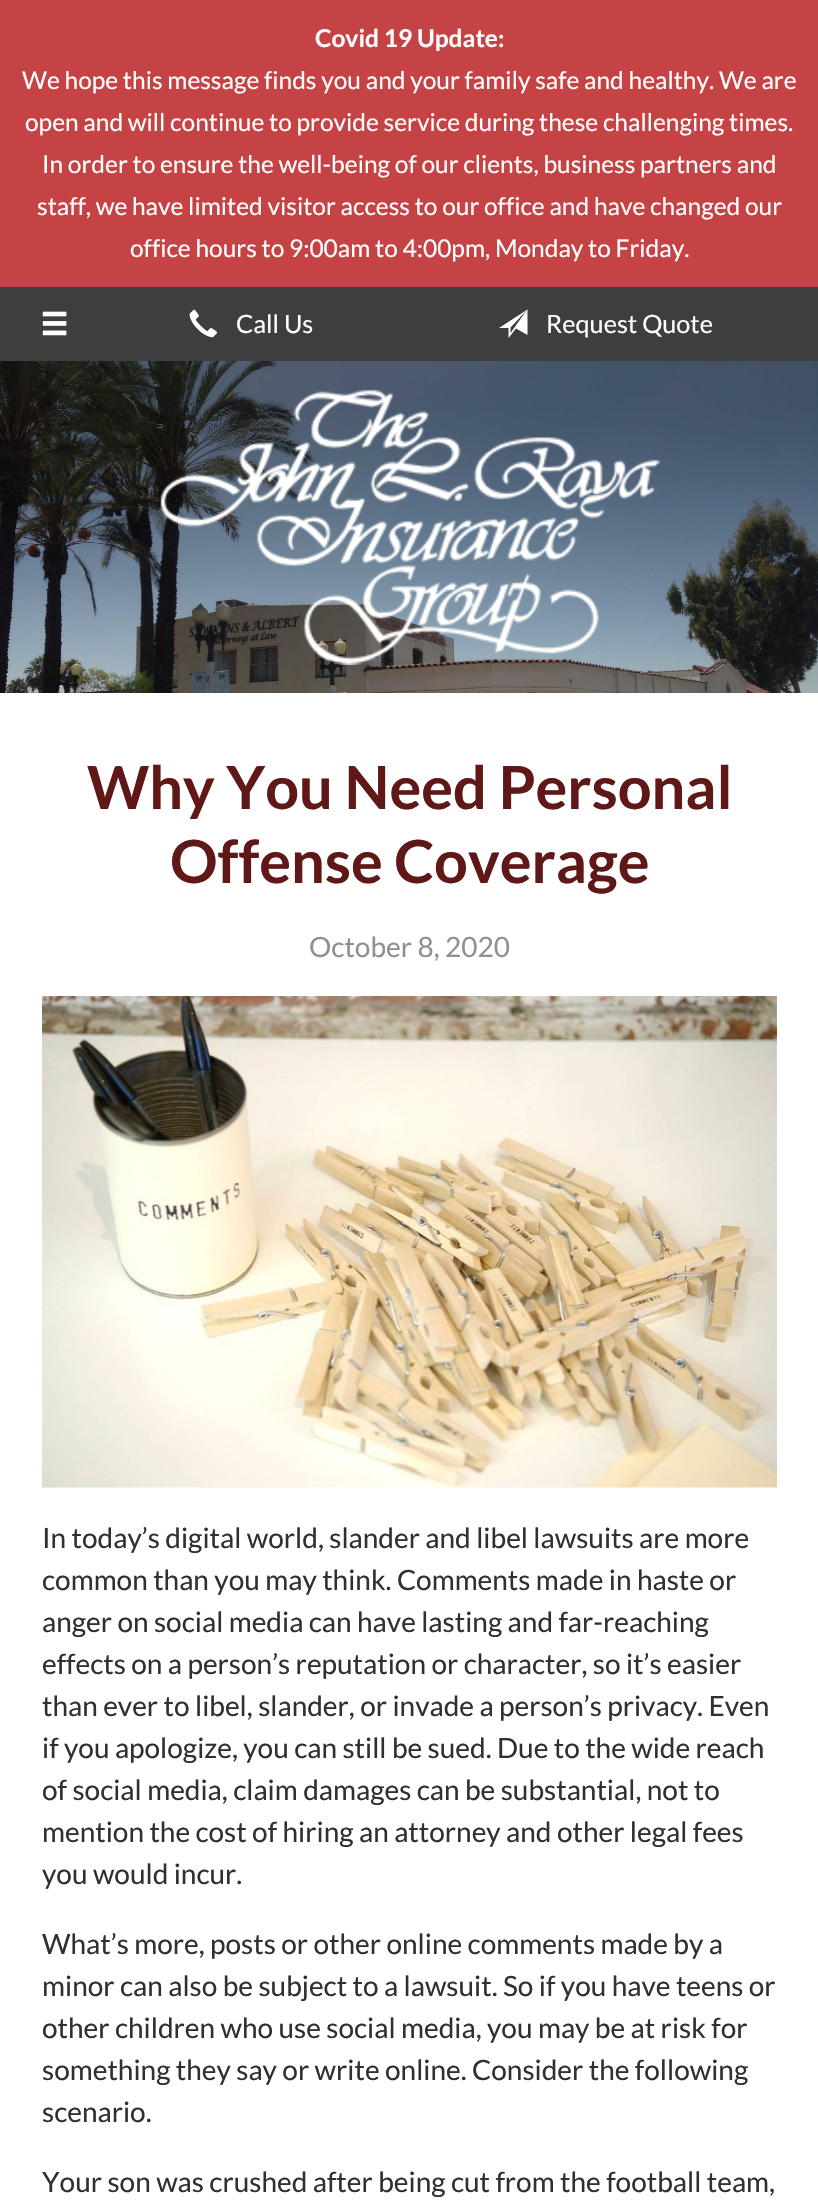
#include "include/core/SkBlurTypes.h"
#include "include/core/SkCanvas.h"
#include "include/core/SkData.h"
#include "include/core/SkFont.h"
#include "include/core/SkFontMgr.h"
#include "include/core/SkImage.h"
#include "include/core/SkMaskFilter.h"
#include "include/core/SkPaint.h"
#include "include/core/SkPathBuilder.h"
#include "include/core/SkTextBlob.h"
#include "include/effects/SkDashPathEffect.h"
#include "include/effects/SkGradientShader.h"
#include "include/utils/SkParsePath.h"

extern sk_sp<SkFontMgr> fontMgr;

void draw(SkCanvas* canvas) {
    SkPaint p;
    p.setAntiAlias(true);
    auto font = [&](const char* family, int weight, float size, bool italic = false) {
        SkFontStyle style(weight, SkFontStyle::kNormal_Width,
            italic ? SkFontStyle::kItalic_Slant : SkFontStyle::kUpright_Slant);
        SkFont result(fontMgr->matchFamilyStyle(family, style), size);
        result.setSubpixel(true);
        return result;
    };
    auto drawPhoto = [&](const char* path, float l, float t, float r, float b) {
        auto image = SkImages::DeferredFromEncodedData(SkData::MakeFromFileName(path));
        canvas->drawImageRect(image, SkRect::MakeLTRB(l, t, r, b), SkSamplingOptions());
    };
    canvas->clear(0xFF3E3E3E);
    p.setColor(0xFFC54344);
    canvas->drawRect(SkRect::MakeLTRB(0, 0, 818, 287), p);
    auto font1 = font("Lato", 700, 24.5f);
    p.setColor(0xFFFFFFFF);
    canvas->drawString("Covid 19 Update:", 315, 47, font1, p);
    auto font2 = font("Lato", 400, 24.5f);
    {
        const struct { const char* s; float x, y; } items[] = {
            {"We hope this message finds you and your family safe and healthy. We are", 22, 89},
            {"open and will continue to provide service during these challenging times.", 25, 131},
            {"In order to ensure the well-being of our clients, business partners and", 42, 173},
            {"staff, we have limited visitor access to our office and have changed our", 37, 215},
            {"office hours to 9:00am to 4:00pm, Monday to Friday.", 130, 257},
        };
        for (auto [s, x, y] : items) {
            canvas->drawString(s, x, y, font2, p);
        }
    }
    drawPhoto("media/1.png", 42, 311, 67, 336);
    drawPhoto("media/2.png", 189, 309, 218, 338);
    auto font3 = font("Lato", 400, 25.25f);
    canvas->drawString("Call Us", 236, 333, font3, p);
    canvas->drawPath(SkPathBuilder().moveTo(499, 328).lineTo(508.5f, 328).lineTo(508.5f, 338).lineTo(516, 328.5f).lineTo(527.5f, 335).lineTo(527.5f, 309.5f).close().moveTo(510.5f, 333).lineTo(510.5f, 327.5f).lineTo(526.5f, 310.5f).close().detach(), p);
    canvas->drawString("Request Quote", 546, 333, font3, p);
    drawPhoto("media/3.png", 0, 361, 818, 693);
    drawPhoto("media/4.png", 160, 389, 660, 665);
    canvas->drawRect(SkRect::MakeLTRB(0, 693, 818, 2211), p);
    auto font4 = font("Lato", 700, 59.5f);
    p.setColor(0xFF5F1817);
    canvas->drawString("Why You Need Personal", 87, 809, font4, p);
    canvas->drawString("Offense Coverage", 170, 883, font4, p);
    auto font5 = font("Lato", 400, 28);
    p.setColor(0xFF909090);
    canvas->drawString("October 8, 2020", 309, 957, font5, p);
    drawPhoto("media/5.png", 42, 996, 777, 1488);
    p.setColor(0xFF303030);
    {
        const struct { const char* s; float x, y; } items[] = {
            {"In today’s digital world, slander and libel lawsuits are more", 42, 1548},
            {"common than you may think. Comments made in haste or", 42, 1590},
            {"anger on social media can have lasting and far-reaching", 42, 1632},
            {"effects on a person’s reputation or character, so it’s easier", 42, 1674},
            {"than ever to libel, slander, or invade a person’s privacy. Even", 42, 1716},
            {"if you apologize, you can still be sued. Due to the wide reach", 42, 1758},
            {"of social media, claim damages can be substantial, not to", 42, 1800},
            {"mention the cost of hiring an attorney and other legal fees", 42, 1842},
            {"you would incur.", 42, 1884},
            {"What’s more, posts or other online comments made by a", 42, 1954},
            {"minor can also be subject to a lawsuit. So if you have teens or", 42, 1996},
            {"other children who use social media, you may be at risk for", 42, 2038},
            {"something they say or write online. Consider the following", 42, 2080},
            {"scenario.", 42, 2122},
            {"Your son was crushed after being cut from the football team,", 42, 2192},
        };
        for (auto [s, x, y] : items) {
            canvas->drawString(s, x, y, font5, p);
        }
    }
}
